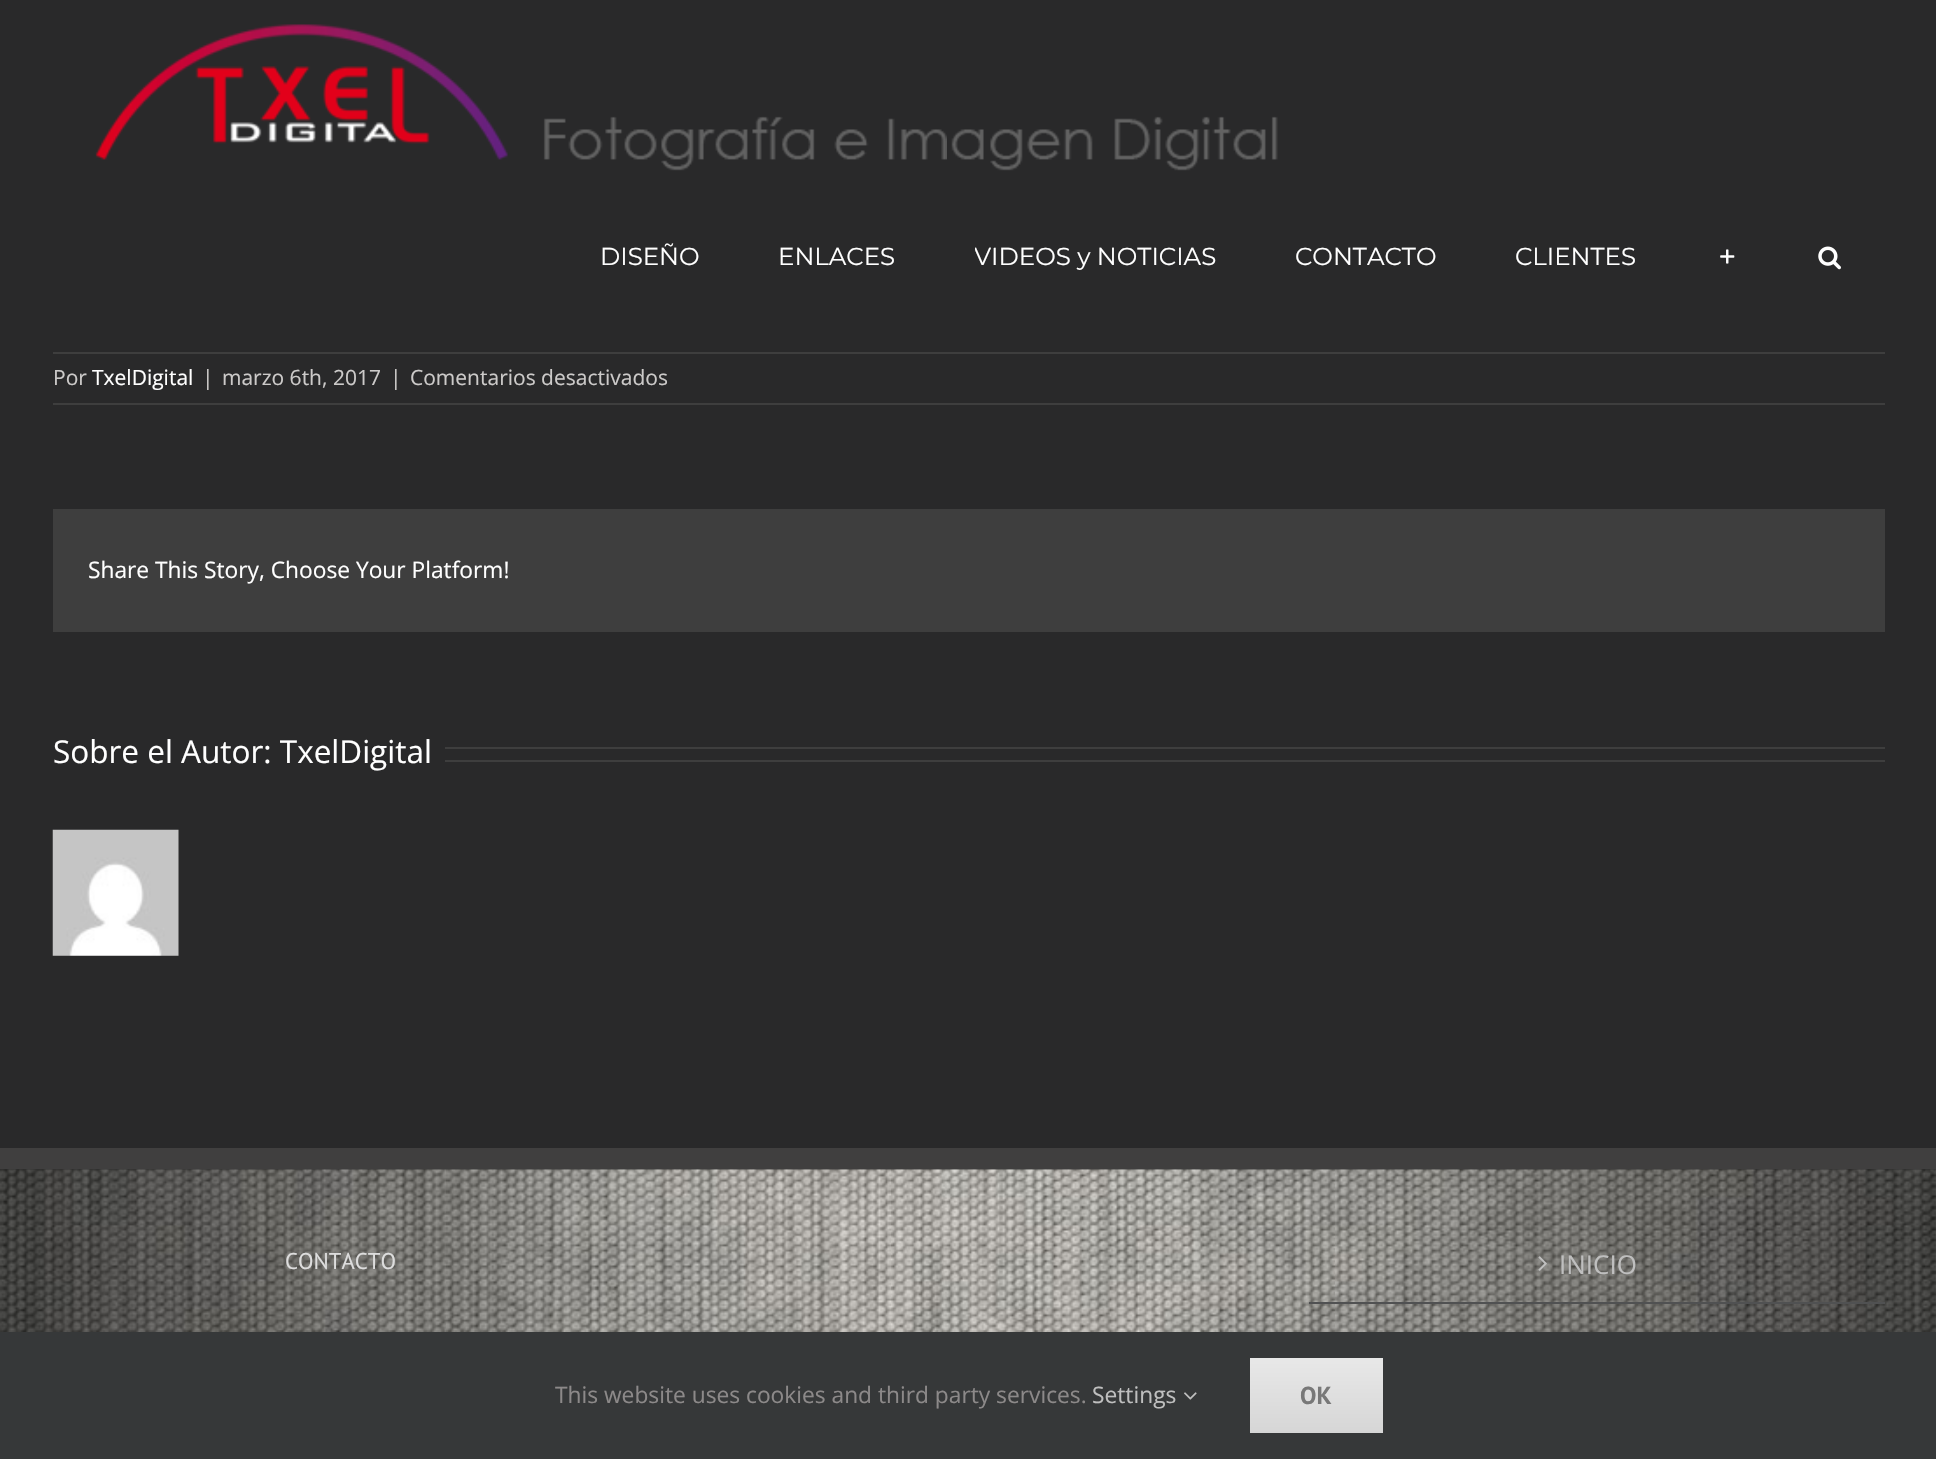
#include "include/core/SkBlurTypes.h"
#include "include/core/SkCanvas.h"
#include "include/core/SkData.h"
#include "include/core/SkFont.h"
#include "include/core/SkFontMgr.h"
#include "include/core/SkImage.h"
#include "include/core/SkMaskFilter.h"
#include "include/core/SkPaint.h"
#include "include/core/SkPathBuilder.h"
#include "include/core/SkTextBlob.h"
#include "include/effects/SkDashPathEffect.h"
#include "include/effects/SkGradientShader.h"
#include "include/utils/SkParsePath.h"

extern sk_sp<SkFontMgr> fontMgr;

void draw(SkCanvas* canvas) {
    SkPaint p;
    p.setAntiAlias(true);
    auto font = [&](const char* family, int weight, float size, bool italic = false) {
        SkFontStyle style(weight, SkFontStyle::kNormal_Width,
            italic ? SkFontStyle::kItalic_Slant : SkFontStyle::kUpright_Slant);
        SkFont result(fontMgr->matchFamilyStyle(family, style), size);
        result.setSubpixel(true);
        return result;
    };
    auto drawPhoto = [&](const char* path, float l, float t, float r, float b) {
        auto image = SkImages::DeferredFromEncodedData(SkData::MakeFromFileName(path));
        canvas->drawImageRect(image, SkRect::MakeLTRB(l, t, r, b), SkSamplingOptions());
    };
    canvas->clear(0xFF29292A);
    drawPhoto("media/1.png", 95, 24, 1278, 171);
    auto font1 = font("Montserrat", 400, 24.5f);
    p.setColor(0xFFFFFFFF);
    canvas->drawString("DISEÑO", 600, 265, font1, p);
    canvas->drawString("ENLACES", 778, 265, font1, p);
    canvas->save();
    canvas->clipRect(SkRect::MakeLTRB(975, 180, 1295, 327));
    canvas->drawString("VIDEOS y NOTICIAS", 974, 265, font1, p);
    canvas->restore();
    canvas->drawString("CONTACTO", 1295, 265, font1, p);
    canvas->drawString("CLIENTES", 1515, 265, font1, p);
    drawPhoto("media/2.png", 1720, 249, 1735, 264);
    drawPhoto("media/3.png", 1818, 246, 1841, 270);
    p.setColor(0xFF3E3E3E);
    canvas->drawRect(SkRect::MakeLTRB(53, 352, 1885, 354), p);
    canvas->drawRect(SkRect::MakeLTRB(53, 403, 1885, 405), p);
    auto font2 = font("Open Sans", 400, 21);
    p.setColor(0xFFCCCAC9);
    canvas->drawString("Por", 53, 385, font2, p);
    p.setColor(0xFFFFFFFF);
    canvas->drawString("TxelDigital", 92, 385, font2, p);
    p.setColor(0xFFCCCAC9);
    {
        const struct { const char* s; float x, y; } items[] = {
            {"|", 202, 385},
            {"marzo 6th, 2017", 222, 385},
            {"|", 390, 385},
            {"Comentarios desactivados", 410, 385},
        };
        for (auto [s, x, y] : items) {
            canvas->drawString(s, x, y, font2, p);
        }
    }
    p.setColor(0xFF3E3E3E);
    canvas->drawRect(SkRect::MakeLTRB(53, 509, 1885, 632), p);
    auto font3 = font("Open Sans", 400, 22.75f);
    p.setColor(0xFFFFFFFF);
    canvas->drawString("Share This Story, Choose Your Platform!", 88, 578, font3, p);
    auto font4 = font("Open Sans", 400, 31.5f);
    canvas->drawString("Sobre el Autor: TxelDigital", 53, 763, font4, p);
    p.setColor(0xFF3E3E3E);
    canvas->drawRect(SkRect::MakeLTRB(445, 747, 1885, 749), p);
    canvas->drawRect(SkRect::MakeLTRB(445, 760, 1885, 762), p);
    drawPhoto("media/4.png", 52, 829, 179, 956);
    p.setColor(0xFF2D2D2D);
    canvas->drawRect(SkRect::MakeLTRB(0, 1169, 1936, 1170), p);
    drawPhoto("media/5.png", 0, 1169, 1936, 1332);
    p.setColor(0xFF403F3F);
    canvas->drawRect(SkRect::MakeLTRB(0, 1148, 1936, 1169), p);
    auto font5 = font("PT Sans", 400, 22.75f);
    p.setColor(0xFFDDDDDD);
    canvas->drawString("CONTACTO", 285, 1269, font5, p);
    p.setColor(0xFF505152);
    canvas->drawRect(SkRect::MakeLTRB(1309, 1302, 1885, 1304), p);
    drawPhoto("media/6.png", 1538, 1256, 1547, 1271);
    auto font6 = font("Open Sans", 400, 26);
    p.setColor(0xFFBFBFBF);
    canvas->drawString("INICIO", 1559, 1274, font6, p);
    p.setColor(0xFF363839);
    canvas->drawRect(SkRect::MakeLTRB(0, 1332, 1936, 1459), p);
    p.setColor(0xFF8C8989);
    canvas->drawString("This website uses cookies and third party services.", 555, 1403, font3, p);
    p.setColor(0xFFBFBFBF);
    canvas->drawString("Settings", 1092, 1403, font3, p);
    drawPhoto("media/7.png", 1184, 1392, 1197, 1400);
    {
        const SkColor colors[] = {0xFFE8E8E8, 0xFFD6D6D6};
        const float stops[] = {0, 1};
        const SkPoint ends[] = {{1316, 1358}, {1316, 1433}};
        p.setShader(SkGradientShader::MakeLinear(ends, colors, stops, 2, SkTileMode::kClamp));
        p.setAlpha(255);
    }
    canvas->drawRect(SkRect::MakeLTRB(1250, 1358, 1383, 1433), p);
    auto font7 = font("PT Sans", 700, 24.5f);
    p.setShader(nullptr);
    p.setColor(0xFF787878);
    canvas->drawString("OK", 1300, 1404, font7, p);
}
